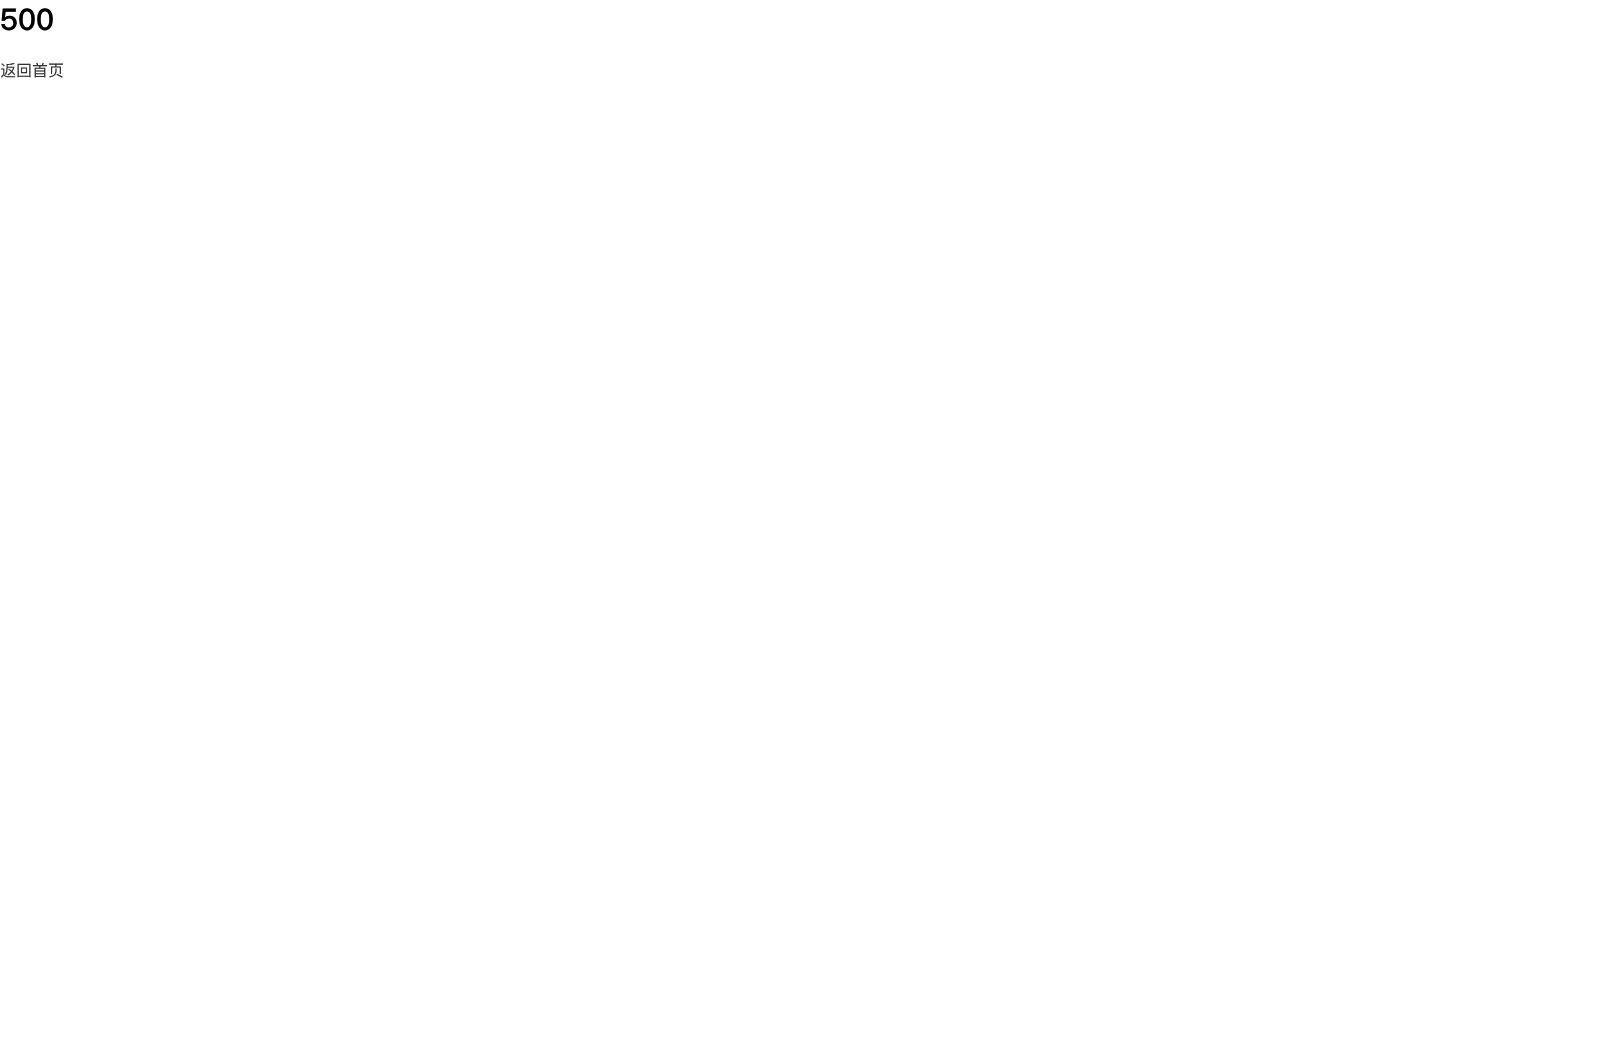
#include "include/core/SkBlurTypes.h"
#include "include/core/SkCanvas.h"
#include "include/core/SkData.h"
#include "include/core/SkFont.h"
#include "include/core/SkFontMgr.h"
#include "include/core/SkImage.h"
#include "include/core/SkMaskFilter.h"
#include "include/core/SkPaint.h"
#include "include/core/SkPathBuilder.h"
#include "include/core/SkTextBlob.h"
#include "include/effects/SkDashPathEffect.h"
#include "include/effects/SkGradientShader.h"
#include "include/utils/SkParsePath.h"

extern sk_sp<SkFontMgr> fontMgr;

void draw(SkCanvas* canvas) {
    SkPaint p;
    p.setAntiAlias(true);
    auto font = [&](const char* family, int weight, float size, bool italic = false) {
        SkFontStyle style(weight, SkFontStyle::kNormal_Width,
            italic ? SkFontStyle::kItalic_Slant : SkFontStyle::kUpright_Slant);
        SkFont result(fontMgr->matchFamilyStyle(family, style), size);
        result.setSubpixel(true);
        return result;
    };
    canvas->clear(0xFFFFFFFF);
    auto font1 = font("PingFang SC", 600, 30);
    p.setColor(0xFF000000);
    canvas->drawString("500", 0, 30, font1, p);
    auto font2 = font("PingFang SC", 400, 16);
    p.setColor(0xFF333333);
    canvas->drawString("返回首页", 0, 76, font2, p);
}
